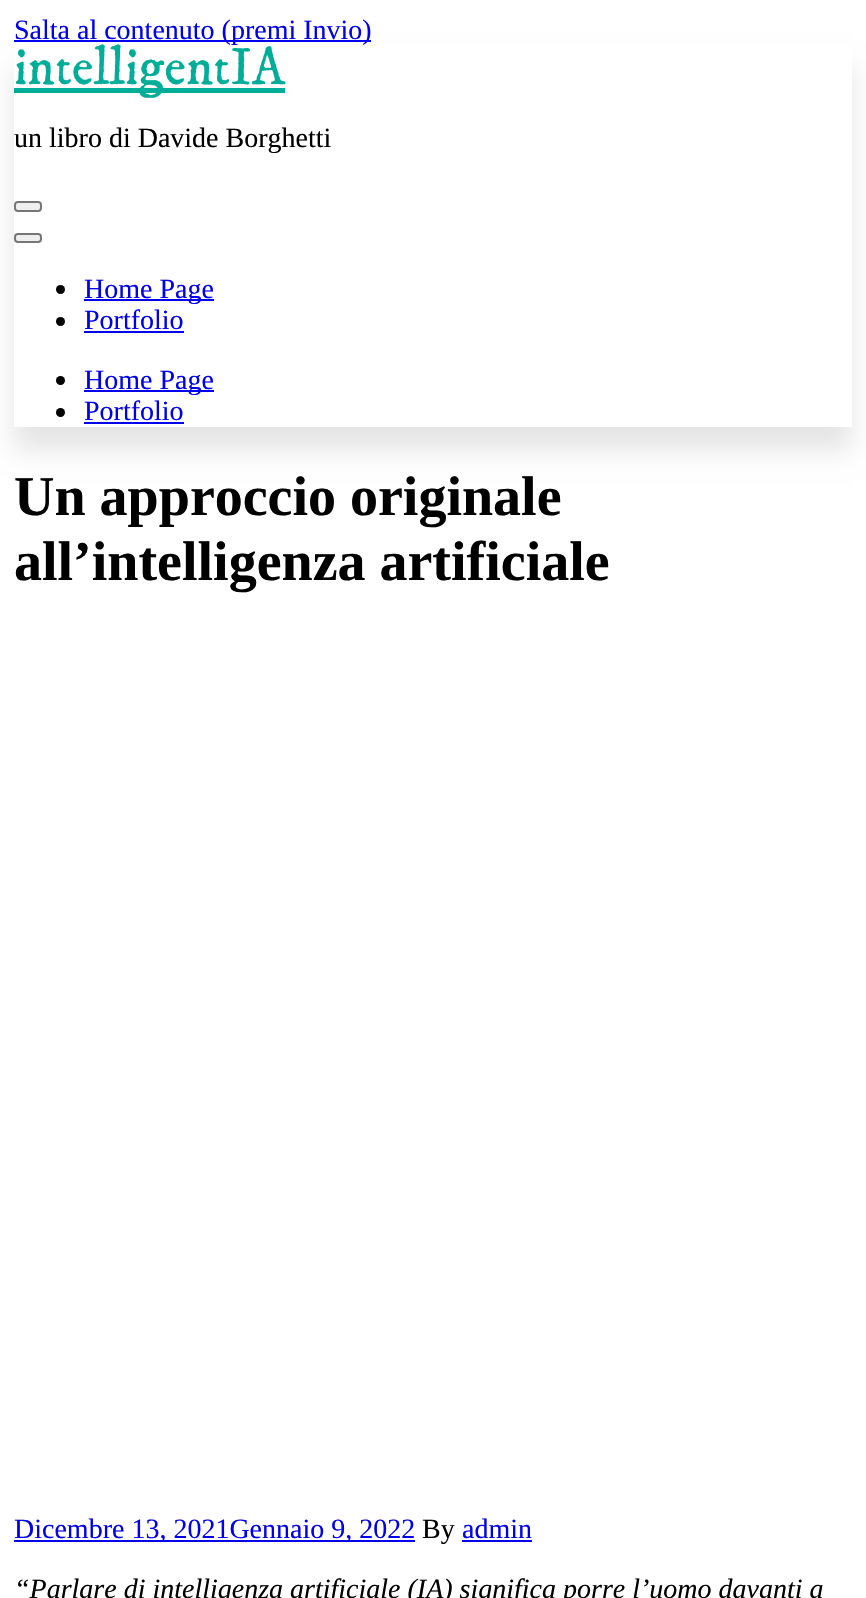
#include "include/core/SkBlurTypes.h"
#include "include/core/SkCanvas.h"
#include "include/core/SkData.h"
#include "include/core/SkFont.h"
#include "include/core/SkFontMgr.h"
#include "include/core/SkImage.h"
#include "include/core/SkMaskFilter.h"
#include "include/core/SkPaint.h"
#include "include/core/SkPathBuilder.h"
#include "include/core/SkTextBlob.h"
#include "include/effects/SkDashPathEffect.h"
#include "include/effects/SkGradientShader.h"
#include "include/utils/SkParsePath.h"

extern sk_sp<SkFontMgr> fontMgr;

void draw(SkCanvas* canvas) {
    SkPaint p;
    p.setAntiAlias(true);
    auto font = [&](const char* family, int weight, float size, bool italic = false) {
        SkFontStyle style(weight, SkFontStyle::kNormal_Width,
            italic ? SkFontStyle::kItalic_Slant : SkFontStyle::kUpright_Slant);
        SkFont result(fontMgr->matchFamilyStyle(family, style), size);
        result.setSubpixel(true);
        return result;
    };
    canvas->clear(0xFFFFFFFF);
    canvas->save();
    canvas->clipPath(SkPathBuilder(SkPathFillType::kEvenOdd).moveTo(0, 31).lineTo(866, 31).lineTo(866, 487).lineTo(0, 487).close().moveTo(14, 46).lineTo(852, 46).lineTo(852, 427).lineTo(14, 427).close().detach(), true);
    p.setColor(0x1A000000);
    p.setMaskFilter(SkMaskFilter::MakeBlur(kNormal_SkBlurStyle, 12));
    canvas->drawRect(SkRect::MakeLTRB(14, 68, 852, 450), p);
    p.setMaskFilter(nullptr);
    canvas->restore();
    p.setColor(0xFF0000EE);
    canvas->drawRect(SkRect::MakeLTRB(14, 40, 371, 42), p);
    auto font1 = font("Liberation Serif", 400, 28);
    canvas->drawString("Salta al contenuto (premi Invio)", 14, 39, font1, p);
    p.setColor(0xFF00AD99);
    canvas->drawRect(SkRect::MakeLTRB(14, 88, 285, 93), p);
    auto font2 = font("IM FELL DW Pica", 400, 52.5f);
    canvas->drawString("intelligentIA", 14, 84, font2, p);
    p.setColor(0xFF000000);
    canvas->drawString("un libro di Davide Borghetti", 14, 147, font1, p);
    p.setColor(0xFFEFEFEF);
    canvas->drawRoundRect(SkRect::MakeLTRB(15, 202, 41, 211), 3, 3, p);
    p.setStyle(SkPaint::kStroke_Style);
    p.setStrokeWidth(2);
    p.setColor(0xFF767676);
    canvas->drawRoundRect(SkRect::MakeLTRB(15, 202, 41, 211), 3, 3, p);
    p.setStyle(SkPaint::kFill_Style);
    p.setColor(0xFFEFEFEF);
    canvas->drawRoundRect(SkRect::MakeLTRB(15, 234, 41, 242), 3, 3, p);
    p.setStyle(SkPaint::kStroke_Style);
    p.setColor(0xFF767676);
    canvas->drawRoundRect(SkRect::MakeLTRB(15, 234, 41, 242), 3, 3, p);
    p.setStyle(SkPaint::kFill_Style);
    p.setColor(0xFF000000);
    canvas->drawCircle(60.5f, 289.5f, 4.5f, p);
    p.setColor(0xFF0000EE);
    canvas->drawRect(SkRect::MakeLTRB(84, 299, 214, 301), p);
    canvas->drawString("Home Page", 84, 298, font1, p);
    p.setColor(0xFF000000);
    canvas->drawCircle(60.5f, 321.5f, 4.5f, p);
    p.setColor(0xFF0000EE);
    canvas->drawString("Portfolio", 84, 329, font1, p);
    canvas->drawRect(SkRect::MakeLTRB(84, 331, 184, 333), p);
    p.setColor(0xFF000000);
    canvas->drawCircle(60.5f, 380.5f, 4.5f, p);
    p.setColor(0xFF0000EE);
    canvas->drawRect(SkRect::MakeLTRB(84, 390, 214, 392), p);
    canvas->drawString("Home Page", 84, 389, font1, p);
    p.setColor(0xFF000000);
    canvas->drawCircle(60.5f, 412.5f, 4.5f, p);
    p.setColor(0xFF0000EE);
    canvas->drawString("Portfolio", 84, 420, font1, p);
    canvas->drawRect(SkRect::MakeLTRB(84, 422, 184, 424), p);
    auto font3 = font("Liberation Serif", 700, 56);
    p.setColor(0xFF000000);
    canvas->drawString("Un approccio originale", 14, 515, font3, p);
    canvas->drawString("all’intelligenza artificiale", 14, 580, font3, p);
    p.setColor(0xFF0000EE);
    canvas->drawRect(SkRect::MakeLTRB(14, 1540, 415, 1542), p);
    canvas->drawString("Dicembre 13, 2021Gennaio 9, 2022", 14, 1538, font1, p);
    p.setColor(0xFF000000);
    canvas->drawString("By", 422, 1538, font1, p);
    p.setColor(0xFF0000EE);
    canvas->drawRect(SkRect::MakeLTRB(462, 1540, 532, 1542), p);
    canvas->drawString("admin", 462, 1538, font1, p);
    auto font4 = font("Liberation Serif", 400, 28, true);
    p.setColor(0xFF000000);
    canvas->drawString("“Parlare di intelligenza artificiale (IA) significa porre l’uomo davanti a", 14, 1598, font4, p);
}
